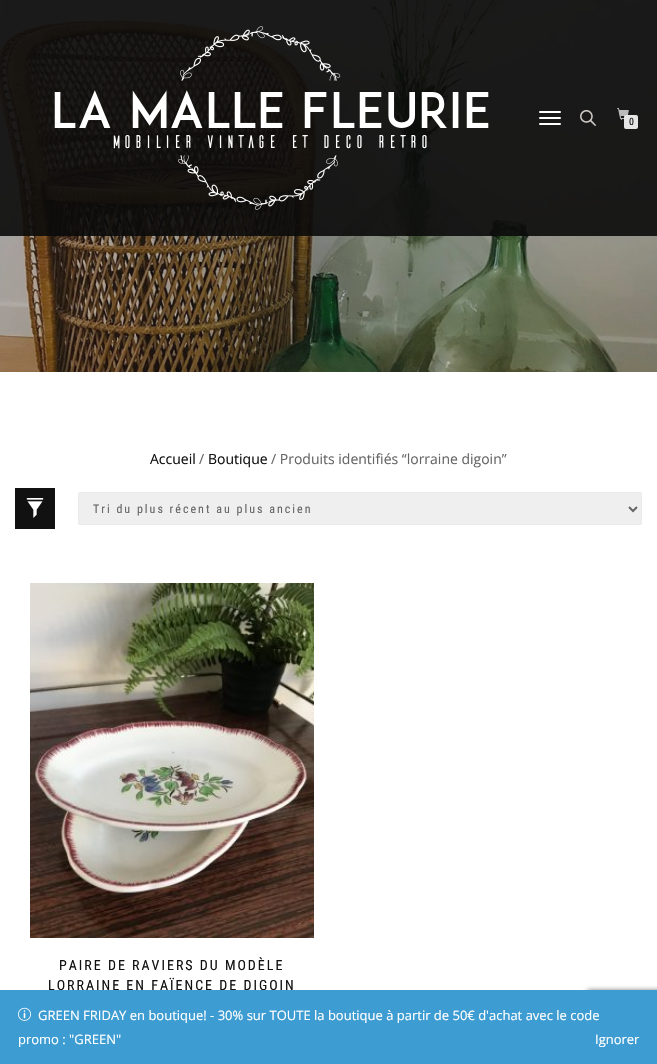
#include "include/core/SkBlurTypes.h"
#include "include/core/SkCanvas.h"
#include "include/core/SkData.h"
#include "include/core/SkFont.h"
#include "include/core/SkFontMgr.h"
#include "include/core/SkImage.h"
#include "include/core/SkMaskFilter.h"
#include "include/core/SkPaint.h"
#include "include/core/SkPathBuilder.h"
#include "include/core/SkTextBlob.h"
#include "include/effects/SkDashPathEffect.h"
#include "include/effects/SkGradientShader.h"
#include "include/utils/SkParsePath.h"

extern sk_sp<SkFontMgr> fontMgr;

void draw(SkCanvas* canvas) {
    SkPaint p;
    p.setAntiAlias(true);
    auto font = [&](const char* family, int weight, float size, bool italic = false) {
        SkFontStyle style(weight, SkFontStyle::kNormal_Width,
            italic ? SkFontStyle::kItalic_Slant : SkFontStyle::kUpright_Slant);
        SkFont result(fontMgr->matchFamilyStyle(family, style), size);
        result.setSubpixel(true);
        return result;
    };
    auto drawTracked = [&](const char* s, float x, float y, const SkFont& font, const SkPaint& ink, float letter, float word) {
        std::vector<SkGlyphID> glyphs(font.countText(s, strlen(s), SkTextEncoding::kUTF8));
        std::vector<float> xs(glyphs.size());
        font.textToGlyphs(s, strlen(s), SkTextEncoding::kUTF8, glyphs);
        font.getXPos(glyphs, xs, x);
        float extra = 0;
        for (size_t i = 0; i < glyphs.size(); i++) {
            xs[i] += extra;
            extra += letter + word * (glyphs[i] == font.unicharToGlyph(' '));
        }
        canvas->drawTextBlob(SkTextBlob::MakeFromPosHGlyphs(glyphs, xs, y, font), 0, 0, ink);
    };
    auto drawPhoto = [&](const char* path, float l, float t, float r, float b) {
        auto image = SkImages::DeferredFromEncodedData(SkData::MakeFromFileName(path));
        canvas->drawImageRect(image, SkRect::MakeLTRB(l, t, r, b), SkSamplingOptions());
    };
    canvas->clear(0xFFFFFFFF);
    drawPhoto("media/4.png", 0, 0, 657, 372);
    p.setColor(0xE60A0A0A);
    canvas->drawRect(SkRect::MakeLTRB(0, 0, 657, 236), p);
    drawPhoto("media/1.png", 54, 26, 489, 210);
    p.setColor(0xFFFFFFFF);
    canvas->drawRoundRect(SkRect::MakeLTRB(539, 111, 561, 113), 1, 1, p);
    canvas->drawRoundRect(SkRect::MakeLTRB(539, 117, 561, 119), 1, 1, p);
    canvas->drawRoundRect(SkRect::MakeLTRB(539, 123, 561, 125), 1, 1, p);
    drawPhoto("media/2.png", 580, 110, 596, 126);
    drawPhoto("media/3.png", 617, 108, 629, 120);
    p.setColor(0xFFE5E5E5);
    canvas->drawRoundRect(SkRect::MakeLTRB(624, 115, 638, 129), 2, 2, p);
    auto font1 = font("Roboto Condensed", 400, 10);
    p.setColor(0xFF111111);
    canvas->drawString("0", 629, 125, font1, p);
    auto font2 = font("Open Sans", 400, 14);
    canvas->drawString("Accueil", 150, 464, font2, p);
    p.setColor(0xFF666666);
    canvas->drawString("/", 199, 464, font2, p);
    p.setColor(0xFF111111);
    canvas->drawString("Boutique", 208, 464, font2, p);
    p.setColor(0xFF666666);
    canvas->drawString("/ Produits identifiés “lorraine digoin”", 271, 464, font2, p);
    p.setColor(0xFF111111);
    canvas->drawRect(SkRect::MakeLTRB(15, 488, 55, 529), p);
    drawPhoto("media/5.png", 26, 498, 44, 518);
    p.setColor(0xFFEFEFEF);
    canvas->drawRoundRect(SkRect::MakeLTRB(78.5f, 492.5f, 641.5f, 524.5f), 1.5f, 1.5f, p);
    p.setStyle(SkPaint::kStroke_Style);
    p.setStrokeWidth(1);
    p.setColor(0xFFEAEAEA);
    canvas->drawRoundRect(SkRect::MakeLTRB(78.5f, 492.5f, 641.5f, 524.5f), 1.5f, 1.5f, p);
    p.setStrokeWidth(2);
    p.setColor(0xFF666666);
    canvas->drawPath(SkPathBuilder().moveTo(629, 507).lineTo(633, 511).lineTo(637, 507).detach(), p);
    auto font3 = font("Roboto Condensed", 400, 12);
    p.setStyle(SkPaint::kFill_Style);
    drawTracked("Tri du plus récent au plus ancien", 93, 513, font3, p, 2, 0);
    drawPhoto("media/6.png", 30, 583, 314, 938);
    auto font4 = font("Roboto Condensed", 400, 14);
    p.setColor(0xFF111111);
    drawTracked("PAIRE DE RAVIERS DU MODÈLE", 59, 970, font4, p, 2, 0);
    drawTracked("LORRAINE EN FAÏENCE DE DIGOIN", 48, 990, font4, p, 2, 0);
    p.setColor(0xFF808080);
    p.setMaskFilter(SkMaskFilter::MakeBlur(kNormal_SkBlurStyle, 2.5f));
    canvas->drawRoundRect(SkRect::MakeLTRB(587, 990, 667, 1050), 2, 2, p);
    p.setMaskFilter(nullptr);
    p.setColor(0xFF3D9CD2);
    canvas->drawRect(SkRect::MakeLTRB(0, 990, 657, 1064), p);
    drawPhoto("media/7.png", 18, 1007, 31, 1021);
    auto font5 = font("Open Sans", 400, 13);
    p.setColor(0xFFFFFFFF);
    {
        const struct { const char* s; float x, y; } items[] = {
            {"GREEN FRIDAY en boutique! - 30% sur TOUTE la boutique à partir de 50€ d'achat avec le code", 38, 1020},
            {"promo : \"GREEN\"", 18, 1044},
            {"Ignorer", 595, 1044},
        };
        for (auto [s, x, y] : items) {
            canvas->drawString(s, x, y, font5, p);
        }
    }
}
